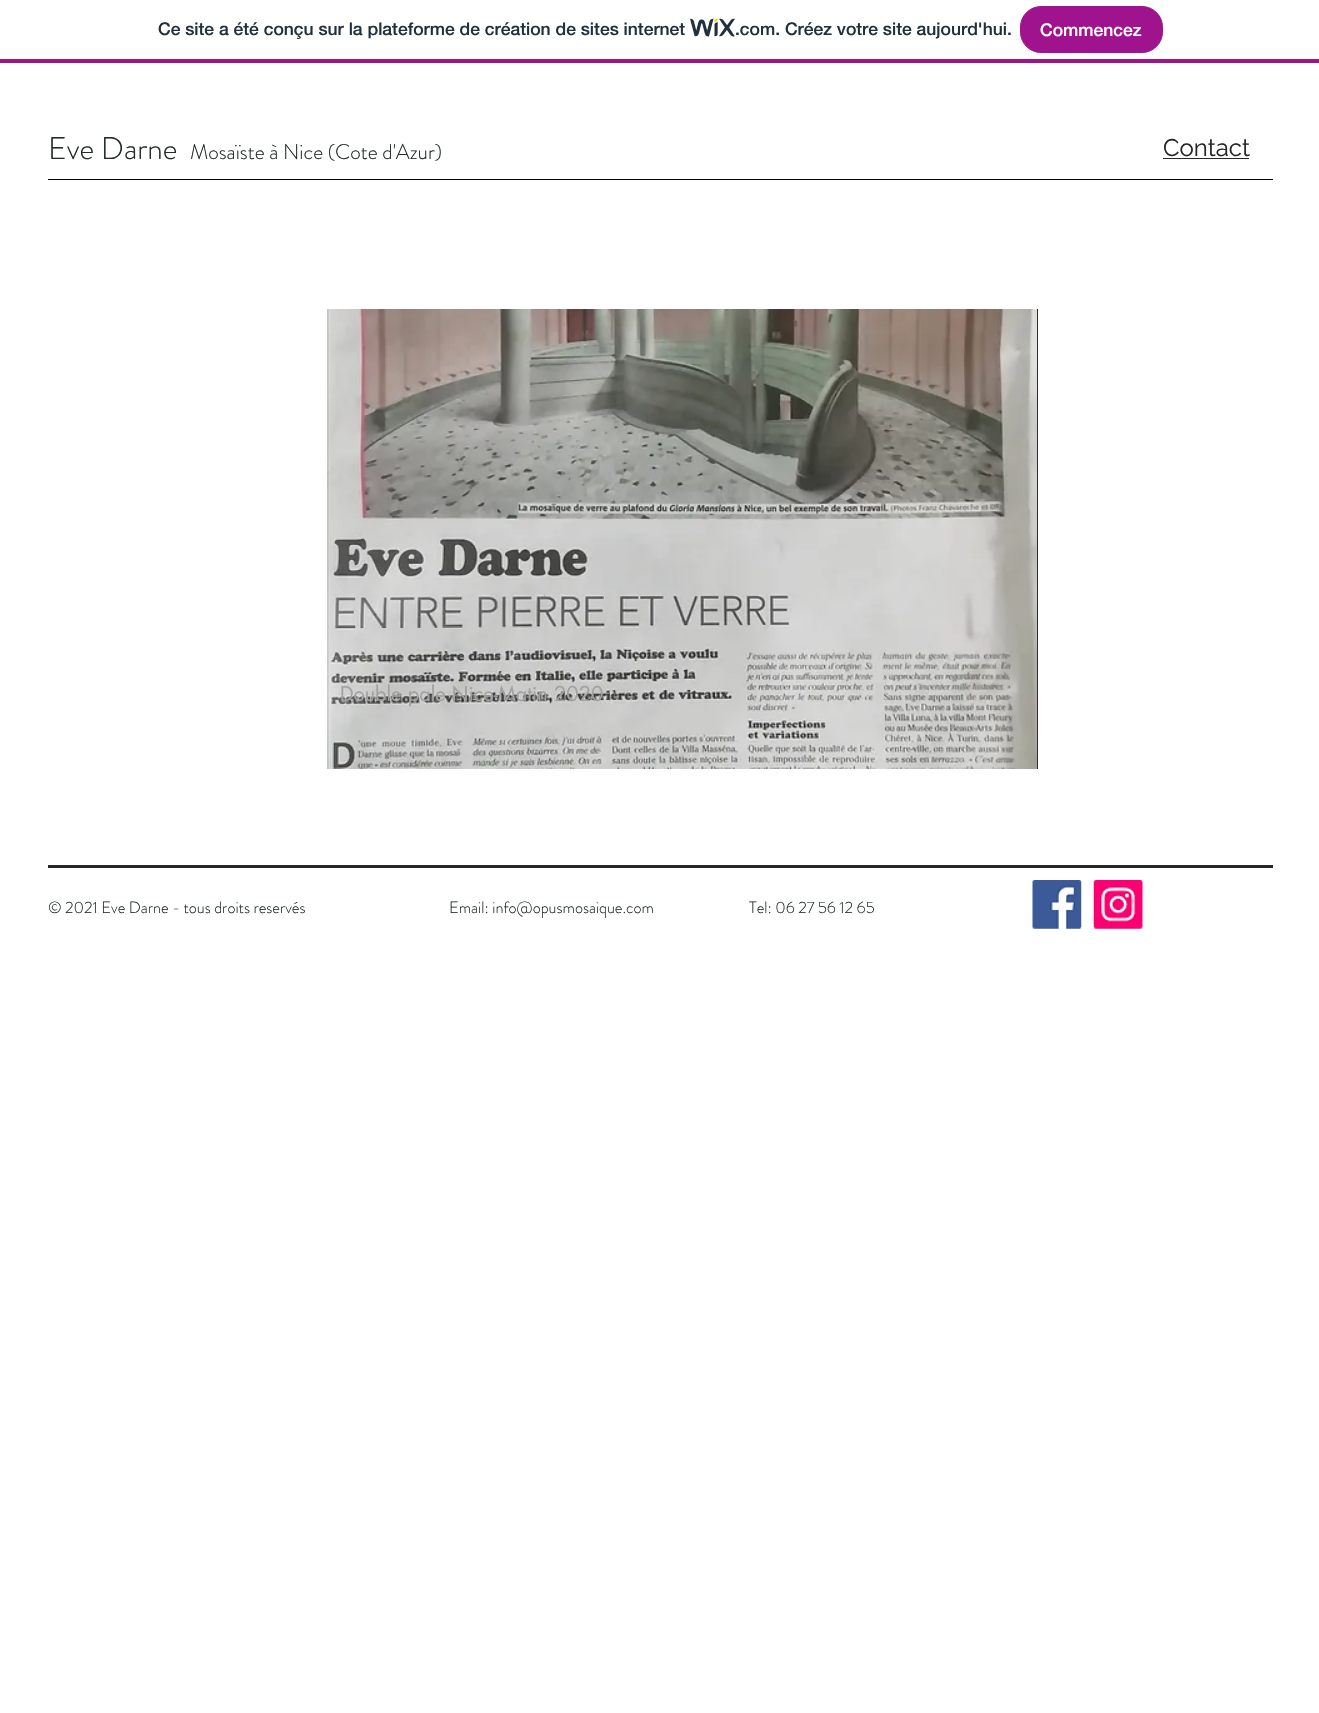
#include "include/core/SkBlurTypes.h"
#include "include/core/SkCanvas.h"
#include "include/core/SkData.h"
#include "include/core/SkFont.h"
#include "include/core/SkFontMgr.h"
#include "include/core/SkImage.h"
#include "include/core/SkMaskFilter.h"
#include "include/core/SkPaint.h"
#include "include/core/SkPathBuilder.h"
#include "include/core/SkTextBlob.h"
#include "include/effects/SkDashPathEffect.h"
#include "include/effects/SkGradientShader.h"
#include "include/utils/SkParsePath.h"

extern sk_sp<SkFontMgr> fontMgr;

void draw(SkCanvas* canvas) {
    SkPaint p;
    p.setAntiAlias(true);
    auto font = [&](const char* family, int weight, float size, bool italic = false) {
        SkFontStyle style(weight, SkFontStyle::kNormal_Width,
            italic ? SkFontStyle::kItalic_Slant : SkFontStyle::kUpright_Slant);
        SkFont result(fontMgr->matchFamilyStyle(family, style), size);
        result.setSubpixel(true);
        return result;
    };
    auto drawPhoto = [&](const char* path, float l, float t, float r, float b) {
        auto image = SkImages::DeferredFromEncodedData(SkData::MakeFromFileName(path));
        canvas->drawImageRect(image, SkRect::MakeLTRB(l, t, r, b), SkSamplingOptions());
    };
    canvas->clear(0xFFFFFFFF);
    p.setColor(0xFFA0138E);
    canvas->drawRect(SkRect::MakeLTRB(0, 59, 1319, 63), p);
    auto font1 = font("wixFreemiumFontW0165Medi", 500, 17.5f);
    p.setColor(0xFF20303C);
    canvas->drawString("Ce site a été conçu sur la plateforme de création de sites internet", 158, 35, font1, p);
    drawPhoto("media/1.png", 690, 18, 735, 37);
    canvas->drawString(".com. Créez votre site aujourd'hui.", 735, 35, font1, p);
    p.setColor(0xFFA0138E);
    canvas->drawRoundRect(SkRect::MakeLTRB(1020.5f, 6.5f, 1162.5f, 52.5f), 20.5f, 20.5f, p);
    p.setStyle(SkPaint::kStroke_Style);
    p.setStrokeWidth(1);
    canvas->drawRoundRect(SkRect::MakeLTRB(1020.5f, 6.5f, 1162.5f, 52.5f), 20.5f, 20.5f, p);
    p.setStyle(SkPaint::kFill_Style);
    p.setColor(0xFFFFFFFF);
    canvas->drawString("Commencez", 1040, 36, font1, p);
    auto font2 = font("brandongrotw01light", 300, 31.25f);
    p.setColor(0xFF212C29);
    canvas->drawString("Eve Darne", 48, 159, font2, p);
    auto font3 = font("brandongrotw01light", 300, 21.25f);
    canvas->drawString("Mosaïste à Nice (Cote d'Azur)", 190, 159, font3, p);
    auto font4 = font("Raleway", 400, 24);
    p.setColor(0xFF262626);
    canvas->drawString("Contact", 1163, 156, font4, p);
    {
        const struct { float l, t, r, b; SkColor color; } items[] = {
            {1163, 158, 1249, 159, 0xFF262626},
            {48, 179, 1273, 180, 0xFF000000},
            {1037, 309, 1038, 769, 0xFF2F2E2E},
        };
        for (auto [l, t, r, b, color] : items) {
            p.setColor(color);
            canvas->drawRect(SkRect::MakeLTRB(l, t, r, b), p);
        }
    }
    drawPhoto("media/2.png", 327, 309, 1037, 769);
    auto font5 = font("futura", 400, 20);
    p.setColor(0xFFA1A1A0);
    canvas->drawString("Double pale Nice-Matin 2020", 340, 701, font5, p);
    p.setColor(0xFF262626);
    canvas->drawRect(SkRect::MakeLTRB(48, 865, 1273, 868), p);
    auto font6 = font("brandongrotw01light", 300, 16.25f);
    p.setColor(0xFF212C29);
    {
        const struct { const char* s; float x, y; } items[] = {
            {"© 2021 Eve Darne - tous droits reservés", 48, 913},
            {"Email: info@opusmosaique.com", 449, 913},
            {"Tel: 06 27 56 12 65", 749, 913},
        };
        for (auto [s, x, y] : items) {
            canvas->drawString(s, x, y, font6, p);
        }
    }
    drawPhoto("media/3.png", 1032, 880, 1082, 929);
    drawPhoto("media/4.png", 1093, 880, 1143, 929);
}
